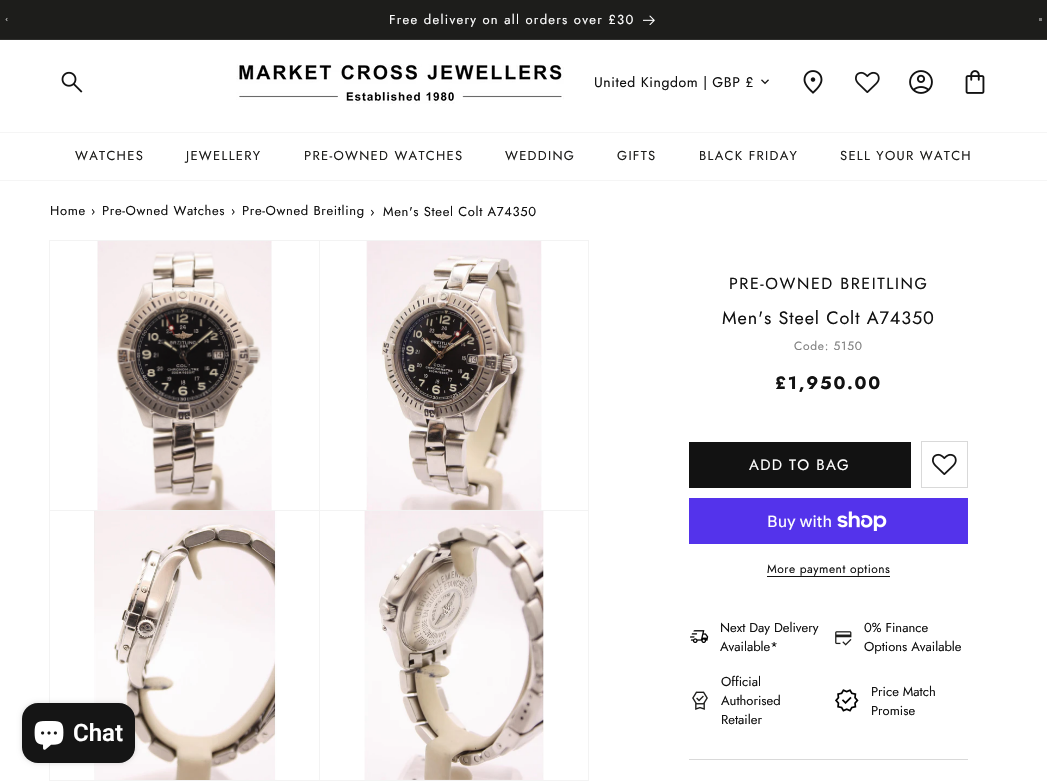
#include "include/core/SkBlurTypes.h"
#include "include/core/SkCanvas.h"
#include "include/core/SkData.h"
#include "include/core/SkFont.h"
#include "include/core/SkFontMgr.h"
#include "include/core/SkImage.h"
#include "include/core/SkMaskFilter.h"
#include "include/core/SkPaint.h"
#include "include/core/SkPathBuilder.h"
#include "include/core/SkTextBlob.h"
#include "include/effects/SkDashPathEffect.h"
#include "include/effects/SkGradientShader.h"
#include "include/utils/SkParsePath.h"

extern sk_sp<SkFontMgr> fontMgr;

void draw(SkCanvas* canvas) {
    SkPaint p;
    p.setAntiAlias(true);
    auto font = [&](const char* family, int weight, float size, bool italic = false) {
        SkFontStyle style(weight, SkFontStyle::kNormal_Width,
            italic ? SkFontStyle::kItalic_Slant : SkFontStyle::kUpright_Slant);
        SkFont result(fontMgr->matchFamilyStyle(family, style), size);
        result.setSubpixel(true);
        return result;
    };
    auto drawTracked = [&](const char* s, float x, float y, const SkFont& font, const SkPaint& ink, float letter, float word) {
        std::vector<SkGlyphID> glyphs(font.countText(s, strlen(s), SkTextEncoding::kUTF8));
        std::vector<float> xs(glyphs.size());
        font.textToGlyphs(s, strlen(s), SkTextEncoding::kUTF8, glyphs);
        font.getXPos(glyphs, xs, x);
        float extra = 0;
        for (size_t i = 0; i < glyphs.size(); i++) {
            xs[i] += extra;
            extra += letter + word * (glyphs[i] == font.unicharToGlyph(' '));
        }
        canvas->drawTextBlob(SkTextBlob::MakeFromPosHGlyphs(glyphs, xs, y, font), 0, 0, ink);
    };
    auto drawPhoto = [&](const char* path, float l, float t, float r, float b) {
        auto image = SkImages::DeferredFromEncodedData(SkData::MakeFromFileName(path));
        canvas->drawImageRect(image, SkRect::MakeLTRB(l, t, r, b), SkSamplingOptions());
    };
    canvas->clear(0xFFFFFFFF);
    p.setColor(0xFF1D1D1B);
    canvas->drawRect(SkRect::MakeLTRB(0, 0, 1047, 39), p);
    p.setColor(0xFF2F2F2D);
    canvas->drawRect(SkRect::MakeLTRB(0, 39, 1047, 40), p);
    drawPhoto("media/1.png", 5, 17, 8, 22);
    auto font1 = font("Jost", 400, 13);
    p.setColor(0xFFFFFFFF);
    drawTracked("Free delivery on all orders over £30", 389, 24, font1, p, 1.3f, 0);
    drawPhoto("media/2.png", 643, 15, 655, 25);
    p.setColor(0xFF7E7E7D);
    canvas->drawRect(SkRect::MakeLTRB(1039, 18, 1042, 21), p);
    p.setColor(0xFFF5F5F5);
    canvas->drawRect(SkRect::MakeLTRB(0, 132, 1047, 133), p);
    drawPhoto("media/3.png", 61, 71, 83, 93);
    drawPhoto("media/4.png", 236, 64, 564, 104);
    auto font2 = font("Jost", 400, 14);
    p.setColor(0xFF121212);
    drawTracked("United Kingdom | GBP £", 594, 87, font2, p, 0.6f, 0);
    drawPhoto("media/5.png", 761, 79, 769, 85);
    drawPhoto("media/6.png", 803, 70, 823, 94);
    drawPhoto("media/7.png", 855, 71, 880, 93);
    drawPhoto("media/8.png", 909, 70, 933, 94);
    drawPhoto("media/9.png", 965, 70, 985, 94);
    p.setColor(0xFFF5F5F5);
    canvas->drawRect(SkRect::MakeLTRB(0, 180, 1047, 181), p);
    p.setColor(0xFF1D1D1B);
    {
        const struct { const char* s; float x, y; } items[] = {
            {"WATCHES", 75, 160},
            {"JEWELLERY", 186, 160},
            {"PRE-OWNED WATCHES", 304, 160},
            {"WEDDING", 505, 160},
            {"GIFTS", 617, 160},
            {"BLACK FRIDAY", 699, 160},
            {"SELL YOUR WATCH", 840, 160},
        };
        for (auto [s, x, y] : items) {
            drawTracked(s, x, y, font1, p, 1.3f, 0);
        }
    }
    p.setColor(0xFF121212);
    drawTracked("Home", 50, 215, font1, p, 0.65f, 0);
    auto font3 = font("Jost", 400, 12);
    canvas->drawString("›", 91, 215, font3, p);
    drawTracked("Pre-Owned Watches", 102, 215, font1, p, 0.65f, 0);
    canvas->drawString("›", 231, 215, font3, p);
    {
        const struct { const char* s; float x, y; } items[] = {
            {"Pre-Owned Breitling", 242, 215},
            {"›", 370, 216},
            {"Men's Steel Colt A74350", 383, 216},
        };
        for (auto [s, x, y] : items) {
            drawTracked(s, x, y, font1, p, 0.65f, 0);
        }
    }
    p.setStyle(SkPaint::kStroke_Style);
    p.setStrokeWidth(1);
    p.setColor(0xFFF3F3F3);
    canvas->drawRect(SkRect::MakeLTRB(49.5f, 240.5f, 319.5f, 510.5f), p);
    drawPhoto("media/10.png", 97, 241, 272, 510);
    canvas->drawRect(SkRect::MakeLTRB(319.5f, 240.5f, 588.5f, 510.5f), p);
    drawPhoto("media/11.png", 366, 241, 542, 510);
    canvas->drawRect(SkRect::MakeLTRB(49.5f, 510.5f, 319.5f, 780.5f), p);
    drawPhoto("media/12.png", 94, 511, 277, 780);
    canvas->drawRect(SkRect::MakeLTRB(319.5f, 510.5f, 588.5f, 780.5f), p);
    drawPhoto("media/13.png", 364, 511, 544, 780);
    auto font4 = font("Jost", 400, 16);
    p.setStyle(SkPaint::kFill_Style);
    p.setColor(0xFF121212);
    drawTracked("PRE-OWNED BREITLING", 729, 289, font4, p, 1.6f, 0);
    auto font5 = font("Jost", 400, 18);
    drawTracked("Men's Steel Colt A74350", 722, 324, font5, p, 0.9f, 0);
    p.setColor(0xFF808080);
    drawTracked("Code: 5150", 794, 350, font3, p, 0.75f, 0);
    auto font6 = font("Jost", 700, 18);
    p.setColor(0xFF121212);
    drawTracked("£1,950.00", 775, 389, font6, p, 1.75f, 0);
    canvas->drawRect(SkRect::MakeLTRB(689, 442, 911, 488), p);
    auto font7 = font("Jost", 400, 15);
    p.setColor(0xFFFFFFFF);
    drawTracked("ADD TO BAG", 749, 470, font7, p, 1.3f, 0);
    p.setStyle(SkPaint::kStroke_Style);
    p.setColor(0xFFD9D9D9);
    canvas->drawRect(SkRect::MakeLTRB(921.5f, 441.5f, 967.5f, 487.5f), p);
    drawPhoto("media/7.png", 932, 453, 957, 475);
    p.setStyle(SkPaint::kFill_Style);
    p.setColor(0xFF5433EB);
    canvas->drawRect(SkRect::MakeLTRB(689, 498, 968, 544), p);
    auto font8 = font("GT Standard", 400, 16);
    p.setColor(0xFFFFFFFF);
    canvas->drawString("Buy with", 767, 527, font8, p);
    drawPhoto("media/14.png", 837, 511, 887, 531);
    p.setColor(0xFF121212);
    drawTracked("More payment options", 767, 573, font3, p, 0.5f, 0);
    canvas->drawRect(SkRect::MakeLTRB(767, 576, 890, 577), p);
    drawPhoto("media/15.png", 690, 630, 709, 643);
    canvas->drawString("Next Day Delivery", 720, 632, font1, p);
    canvas->drawString("Available*", 720, 651, font1, p);
    drawPhoto("media/16.png", 835, 631, 852, 646);
    canvas->drawString("0% Finance", 864, 632, font1, p);
    canvas->drawString("Options Available", 864, 651, font1, p);
    drawPhoto("media/17.png", 692, 691, 708, 710);
    {
        const struct { const char* s; float x, y; } items[] = {
            {"Official", 721, 686},
            {"Authorised", 721, 705},
            {"Retailer", 721, 724},
        };
        for (auto [s, x, y] : items) {
            canvas->drawString(s, x, y, font1, p);
        }
    }
    drawPhoto("media/18.png", 835, 689, 859, 712);
    canvas->drawString("Price Match", 871, 696, font1, p);
    canvas->drawString("Promise", 871, 715, font1, p);
    p.setColor(0xFFD9D9D9);
    canvas->drawRect(SkRect::MakeLTRB(689, 759, 968, 760), p);
    p.setColor(0x26000000);
    p.setMaskFilter(SkMaskFilter::MakeBlur(kNormal_SkBlurStyle, 2.5f));
    canvas->drawRoundRect(SkRect::MakeLTRB(22, 703, 135, 763), 16, 16, p);
    p.setMaskFilter(nullptr);
    p.setColor(0xFF151515);
    canvas->drawRoundRect(SkRect::MakeLTRB(22, 703, 135, 763), 16, 16, p);
    drawPhoto("media/19.png", 34, 721, 64, 750);
    auto font9 = font("Roboto", 600, 24);
    p.setColor(0xFFFFFFFF);
    canvas->drawString("Chat", 73, 741, font9, p);
}
